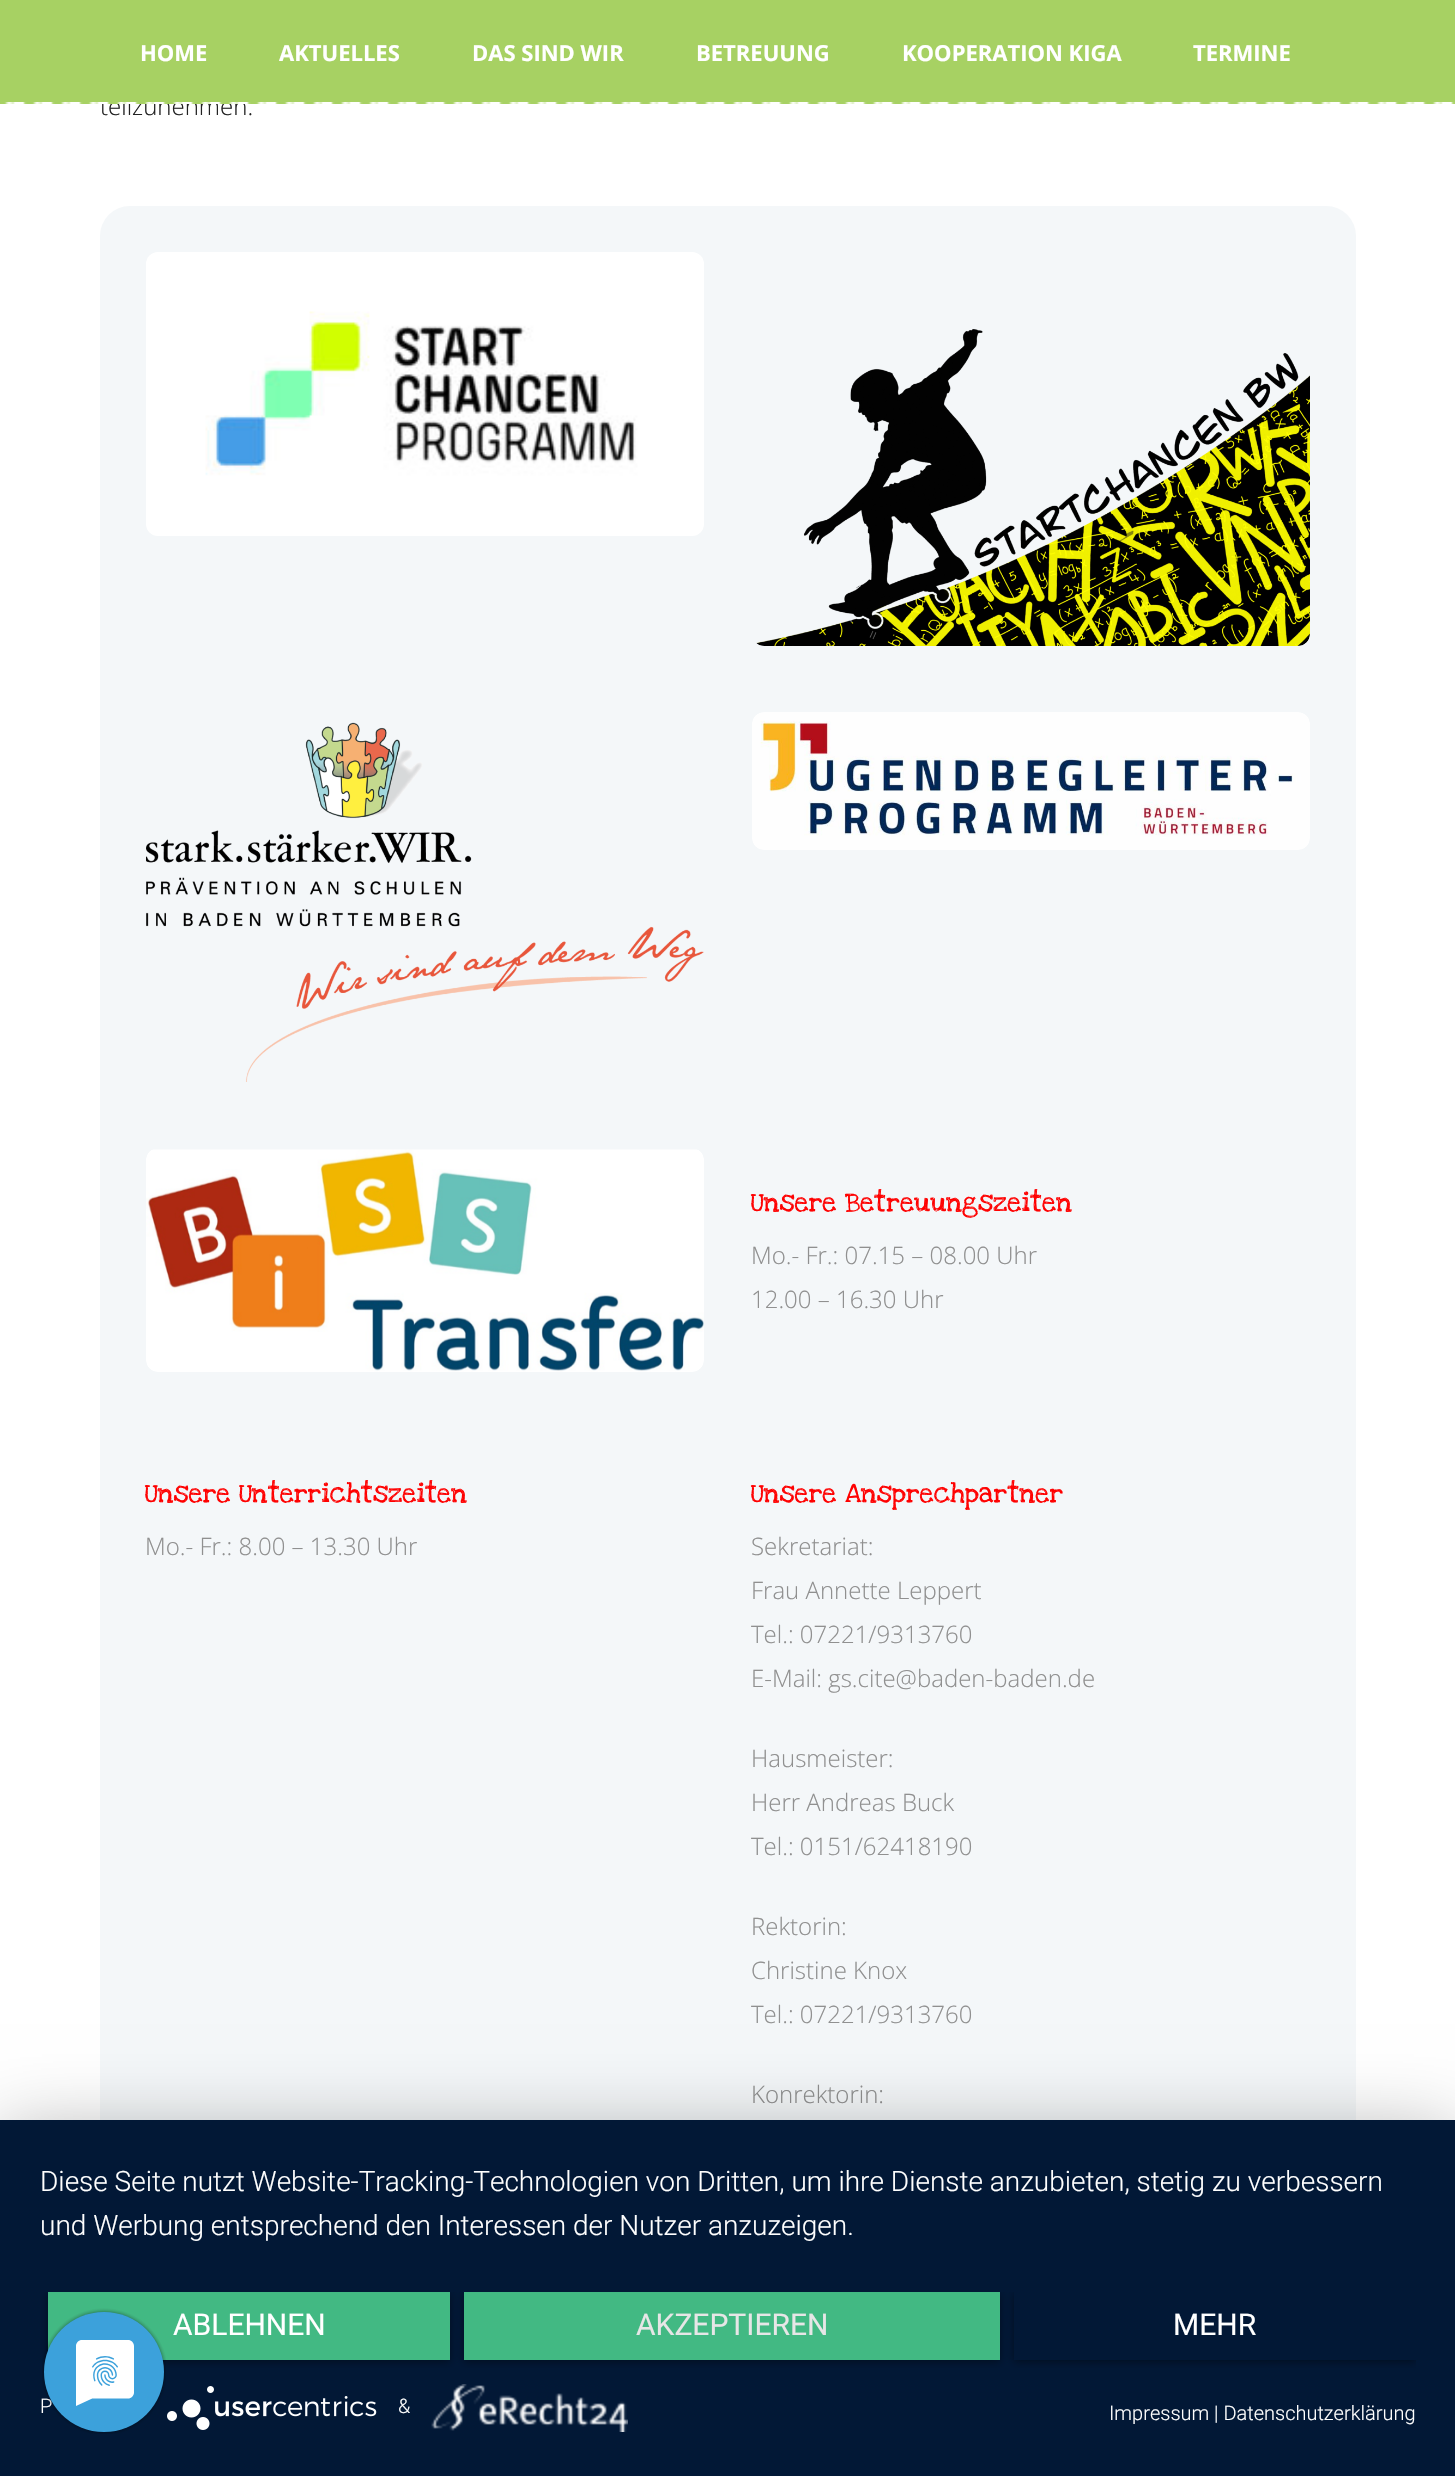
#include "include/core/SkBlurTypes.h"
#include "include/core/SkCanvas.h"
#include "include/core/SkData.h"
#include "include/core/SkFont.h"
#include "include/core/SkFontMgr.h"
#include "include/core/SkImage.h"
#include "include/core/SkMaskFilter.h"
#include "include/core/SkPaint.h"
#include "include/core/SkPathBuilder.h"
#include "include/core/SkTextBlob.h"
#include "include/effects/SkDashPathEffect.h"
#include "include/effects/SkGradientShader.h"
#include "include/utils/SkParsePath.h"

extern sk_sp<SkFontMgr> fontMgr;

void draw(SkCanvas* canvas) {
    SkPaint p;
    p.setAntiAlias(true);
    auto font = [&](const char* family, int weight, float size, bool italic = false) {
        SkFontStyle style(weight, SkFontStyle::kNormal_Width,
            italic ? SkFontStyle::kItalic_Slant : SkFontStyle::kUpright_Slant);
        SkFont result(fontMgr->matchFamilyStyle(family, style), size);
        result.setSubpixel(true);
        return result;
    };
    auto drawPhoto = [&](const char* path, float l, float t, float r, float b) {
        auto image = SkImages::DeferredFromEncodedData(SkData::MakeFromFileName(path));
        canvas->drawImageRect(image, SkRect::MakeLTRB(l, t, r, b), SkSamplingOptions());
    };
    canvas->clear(0xFFFFFFFF);
    auto font1 = font("Open Sans", 300, 24);
    p.setColor(0xFF222222);
    canvas->drawString("teilzunehmen.", 100, 115, font1, p);
    p.setColor(0xFFA7D163);
    canvas->drawRect(SkRect::MakeLTRB(0, 0, 1455, 104), p);
    drawPhoto("media/1.png", 4, 102, 1455, 104);
    auto font2 = font("Open Sans", 700, 22);
    p.setColor(0xFFFFFFFF);
    {
        const struct { const char* s; float x, y; } items[] = {
            {"HOME", 140, 61},
            {"AKTUELLES", 279, 61},
            {"DAS SIND WIR", 472, 61},
            {"BETREUUNG", 696, 61},
            {"KOOPERATION KIGA", 902, 61},
            {"TERMINE", 1193, 61},
        };
        for (auto [s, x, y] : items) {
            canvas->drawString(s, x, y, font2, p);
        }
    }
    p.setColor(0xFFF4F7F9);
    canvas->drawRoundRect(SkRect::MakeLTRB(100, 206, 1356, 2286), 30, 30, p);
    drawPhoto("media/2.png", 146, 252, 704, 536);
    drawPhoto("media/3.png", 756, 329, 1310, 646);
    drawPhoto("media/4.png", 146, 722, 704, 1082);
    drawPhoto("media/5.png", 752, 712, 1310, 850);
    drawPhoto("media/6.png", 146, 1149, 704, 1372);
    auto font3 = font("Love Ya Like A Sister", 400, 28);
    p.setColor(0xFFFF0000);
    canvas->drawString("Unsere Betreuungszeiten", 751, 1211, font3, p);
    p.setColor(0xFF909090);
    canvas->drawString("Mo.- Fr.: 07.15 – 08.00 Uhr", 751, 1264, font1, p);
    canvas->drawString("12.00 – 16.30 Uhr", 751, 1308, font1, p);
    p.setColor(0xFFFF0000);
    canvas->drawString("Unsere Unterrichtszeiten", 145, 1502, font3, p);
    p.setColor(0xFF909090);
    canvas->drawString("Mo.- Fr.: 8.00 – 13.30 Uhr", 145, 1555, font1, p);
    p.setColor(0xFFFF0000);
    canvas->drawString("Unsere Ansprechpartner", 751, 1502, font3, p);
    p.setColor(0xFF909090);
    {
        const struct { const char* s; float x, y; } items[] = {
            {"Sekretariat:", 751, 1555},
            {"Frau Annette Leppert", 751, 1599},
            {"Tel.: 07221/9313760", 751, 1643},
            {"E-Mail: gs.cite@baden-baden.de", 751, 1687},
            {"Hausmeister:", 751, 1767},
            {"Herr Andreas Buck", 751, 1811},
            {"Tel.: 0151/62418190", 751, 1855},
            {"Rektorin:", 751, 1935},
            {"Christine Knox", 751, 1979},
            {"Tel.: 07221/9313760", 751, 2023},
            {"Konrektorin:", 751, 2103},
        };
        for (auto [s, x, y] : items) {
            canvas->drawString(s, x, y, font1, p);
        }
    }
    p.setColor(0x4D000000);
    p.setMaskFilter(SkMaskFilter::MakeBlur(kNormal_SkBlurStyle, 36));
    canvas->drawRect(SkRect::MakeLTRB(0, 2132, 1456, 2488), p);
    p.setMaskFilter(nullptr);
    p.setColor(0xFF021836);
    canvas->drawRect(SkRect::MakeLTRB(0, 2120, 1455, 2476), p);
    auto font4 = font("Roboto", 300, 28);
    p.setColor(0xFFFFFFFF);
    canvas->drawString("Diese Seite nutzt Website-Tracking-Technologien von Dritten, um ihre Dienste anzubieten, stetig zu verbessern", 40, 2191, font4, p);
    canvas->drawString("und Werbung entsprechend den Interessen der Nutzer anzuzeigen.", 40, 2235, font4, p);
    canvas->save();
    canvas->clipRect(SkRect::MakeLTRB(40, 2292, 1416, 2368));
    p.setColor(0x66000000);
    p.setMaskFilter(SkMaskFilter::MakeBlur(kNormal_SkBlurStyle, 4));
    canvas->drawRect(SkRect::MakeLTRB(48, 2294, 450, 2362), p);
    p.setMaskFilter(nullptr);
    canvas->restore();
    p.setColor(0xFF42B983);
    canvas->drawRect(SkRect::MakeLTRB(48, 2292, 450, 2360), p);
    auto font5 = font("Roboto", 400, 30);
    p.setColor(0xFFFFFFFF);
    canvas->drawString("ABLEHNEN", 173, 2335, font5, p);
    canvas->save();
    canvas->clipRect(SkRect::MakeLTRB(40, 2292, 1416, 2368));
    p.setColor(0x66000000);
    p.setMaskFilter(SkMaskFilter::MakeBlur(kNormal_SkBlurStyle, 4));
    canvas->drawRect(SkRect::MakeLTRB(464, 2294, 1000, 2362), p);
    p.setMaskFilter(nullptr);
    canvas->restore();
    p.setColor(0xFF42B983);
    canvas->drawRect(SkRect::MakeLTRB(464, 2292, 1000, 2360), p);
    p.setColor(0xFFE6E6E6);
    canvas->drawString("AKZEPTIEREN", 636, 2335, font5, p);
    canvas->save();
    canvas->clipRect(SkRect::MakeLTRB(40, 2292, 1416, 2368));
    canvas->clipPath(SkPathBuilder(SkPathFillType::kEvenOdd).moveTo(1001, 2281).lineTo(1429, 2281).lineTo(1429, 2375).lineTo(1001, 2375).close().moveTo(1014, 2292).lineTo(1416, 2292).lineTo(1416, 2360).lineTo(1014, 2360).close().detach(), true);
    p.setColor(0x66000000);
    p.setMaskFilter(SkMaskFilter::MakeBlur(kNormal_SkBlurStyle, 4));
    canvas->drawRect(SkRect::MakeLTRB(1014, 2294, 1416, 2362), p);
    p.setMaskFilter(nullptr);
    canvas->restore();
    p.setColor(0xFFFFFFFF);
    canvas->drawString("MEHR", 1173, 2335, font5, p);
    auto font6 = font("Roboto", 300, 20);
    canvas->drawString("P", 40, 2413, font6, p);
    drawPhoto("media/7.png", 167, 2386, 377, 2430);
    canvas->drawString("&", 398, 2413, font6, p);
    drawPhoto("media/8.png", 431, 2384, 628, 2432);
    canvas->drawString("Impressum | Datenschutzerklärung", 1109, 2420, font6, p);
    drawPhoto("media/9.png", 42, 2308, 166, 2434);
}
